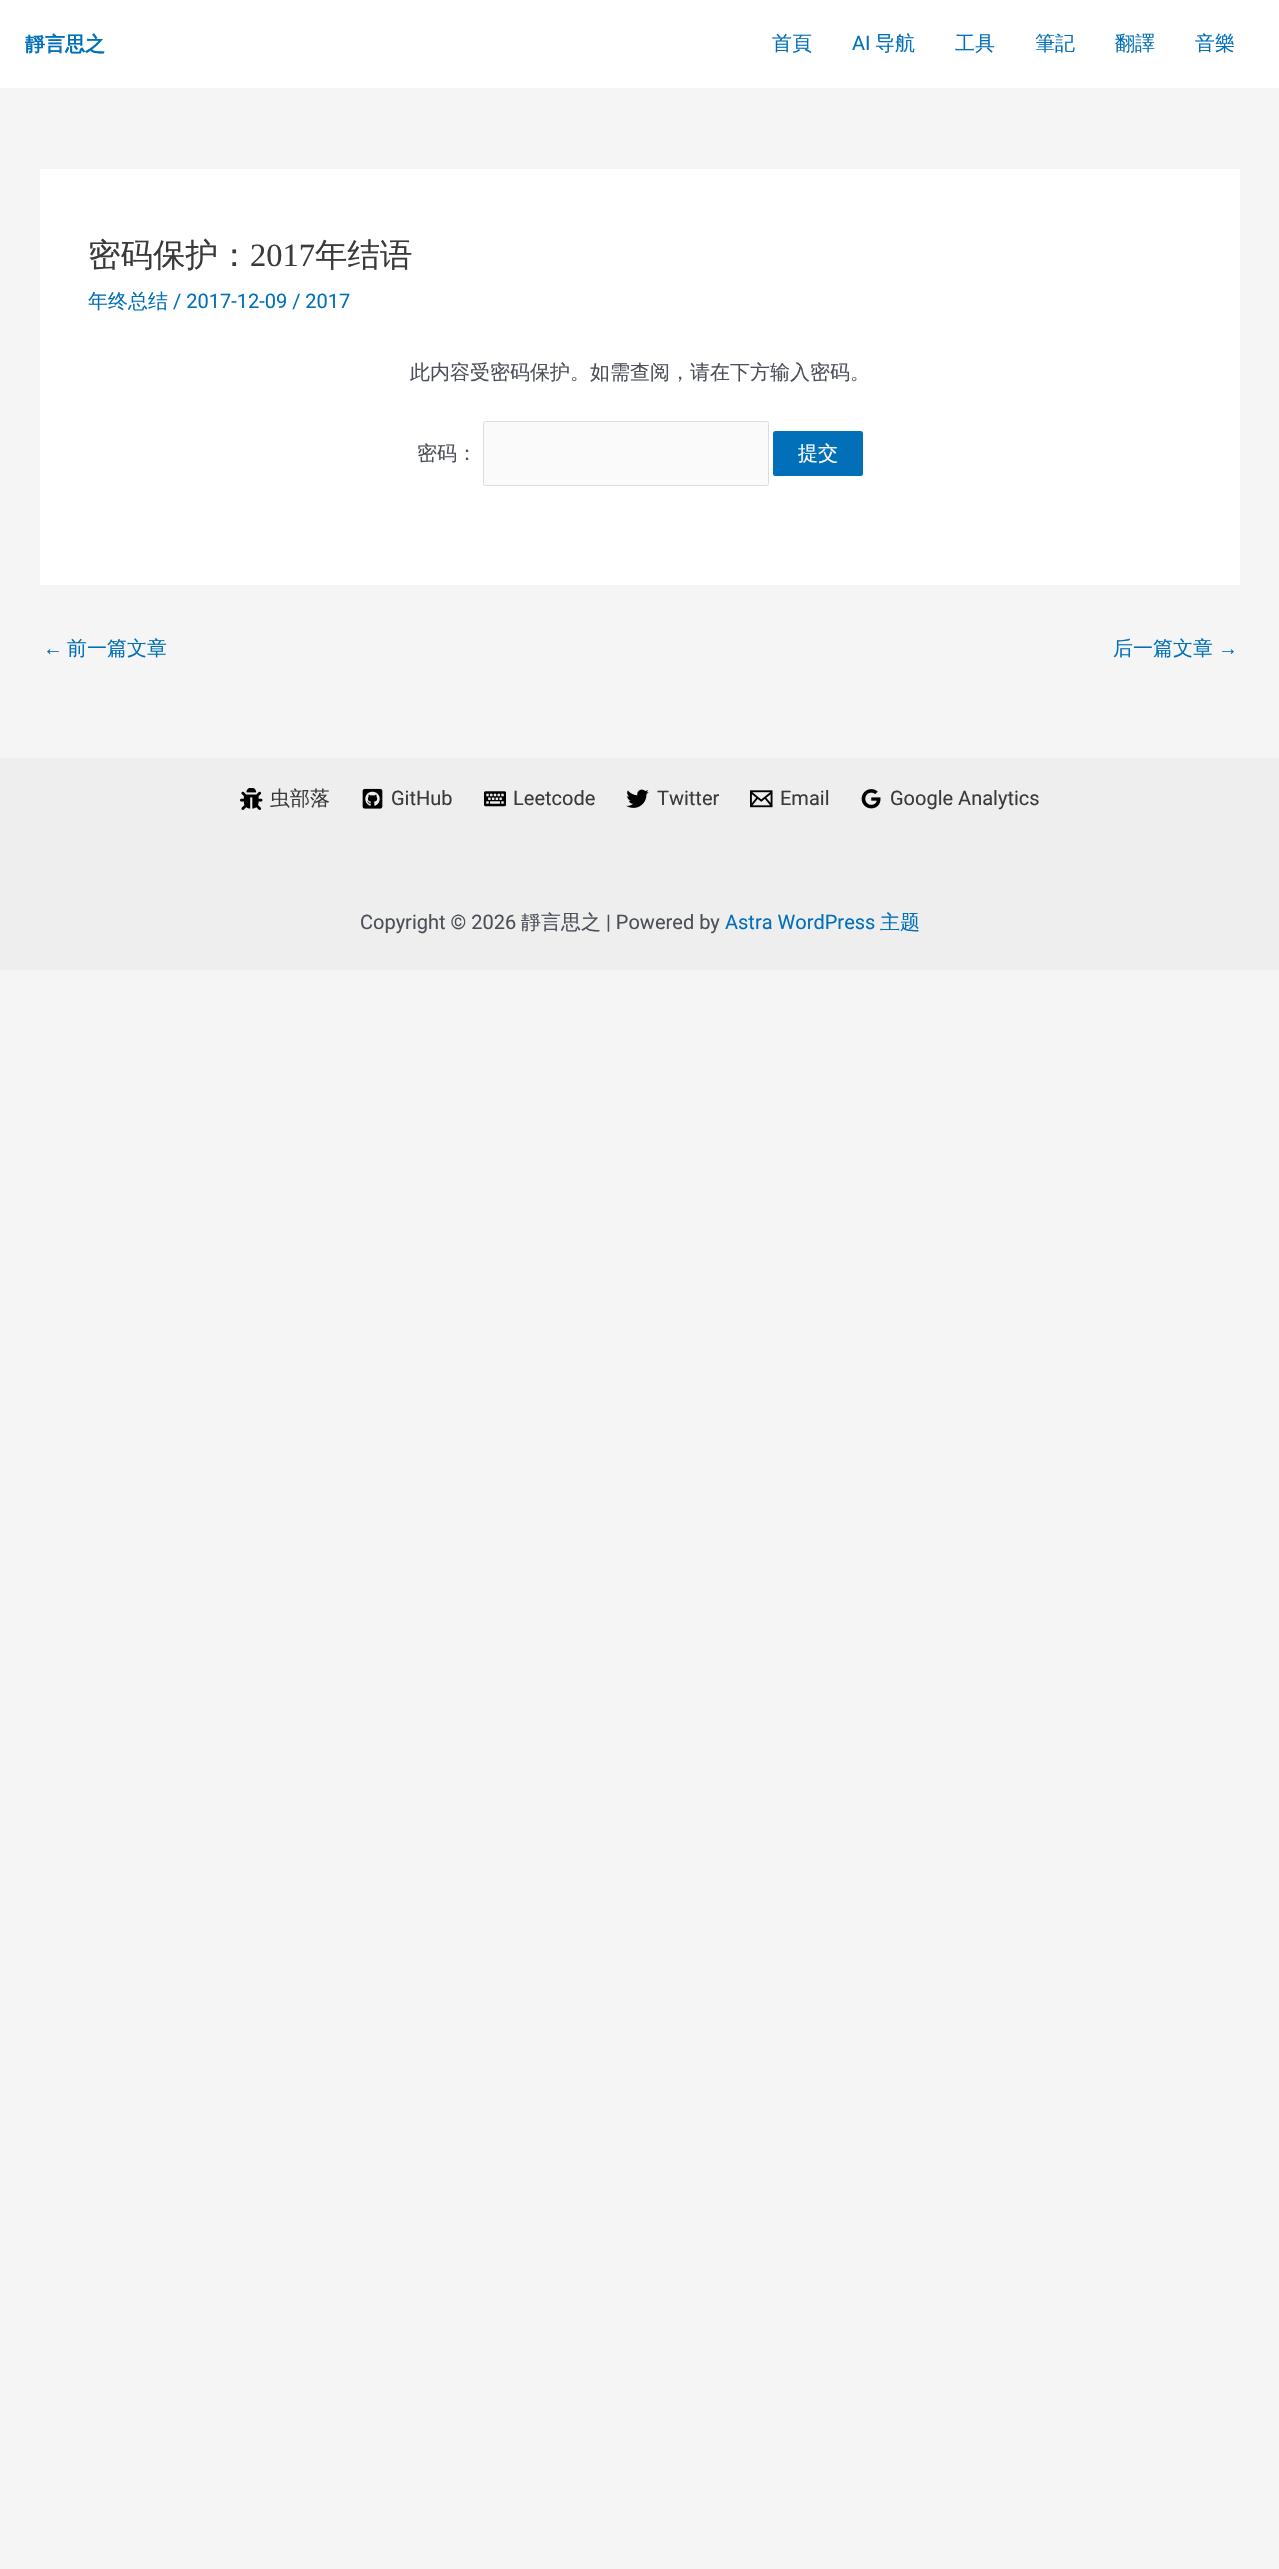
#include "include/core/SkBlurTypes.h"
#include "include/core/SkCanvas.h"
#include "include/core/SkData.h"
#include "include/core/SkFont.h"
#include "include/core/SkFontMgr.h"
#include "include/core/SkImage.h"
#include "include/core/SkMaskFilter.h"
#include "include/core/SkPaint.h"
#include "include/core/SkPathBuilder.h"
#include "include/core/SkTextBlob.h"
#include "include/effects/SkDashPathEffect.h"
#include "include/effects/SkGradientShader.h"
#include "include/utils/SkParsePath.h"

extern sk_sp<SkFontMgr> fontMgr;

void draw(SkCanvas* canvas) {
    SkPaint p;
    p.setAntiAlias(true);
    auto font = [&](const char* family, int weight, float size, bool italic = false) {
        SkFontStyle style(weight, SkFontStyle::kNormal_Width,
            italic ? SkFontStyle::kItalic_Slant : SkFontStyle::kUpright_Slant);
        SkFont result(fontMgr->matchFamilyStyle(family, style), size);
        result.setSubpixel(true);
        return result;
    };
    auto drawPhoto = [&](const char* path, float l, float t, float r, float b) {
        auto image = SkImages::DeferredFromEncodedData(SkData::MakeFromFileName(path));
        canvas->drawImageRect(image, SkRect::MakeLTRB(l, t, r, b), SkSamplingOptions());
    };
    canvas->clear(0xFFF5F5F5);
    p.setColor(0xFFFFFFFF);
    canvas->drawRect(SkRect::MakeLTRB(0, 0, 1279, 88), p);
    p.setColor(0xFFF2F5F7);
    canvas->drawRect(SkRect::MakeLTRB(0, 88, 1279, 89), p);
    auto font1 = font("WenQuanYi Zen Hei", 700, 20);
    p.setColor(0xFF0170B9);
    canvas->drawString("靜言思之", 25, 51, font1, p);
    auto font2 = font("WenQuanYi Zen Hei", 500, 20);
    canvas->drawString("首頁", 772, 50, font2, p);
    auto font3 = font("Roboto", 400, 20);
    canvas->drawString("AI", 852, 50, font3, p);
    {
        const struct { const char* s; float x, y; } items[] = {
            {"导航", 875, 50},
            {"工具", 955, 50},
            {"筆記", 1035, 50},
            {"翻譯", 1115, 50},
            {"音樂", 1195, 50},
        };
        for (auto [s, x, y] : items) {
            canvas->drawString(s, x, y, font2, p);
        }
    }
    p.setColor(0xFFFFFFFF);
    canvas->drawRect(SkRect::MakeLTRB(40, 169, 1240, 585), p);
    auto font4 = font("WenQuanYi Zen Hei", 500, 32.5f);
    p.setColor(0xFF3A3A3A);
    canvas->drawString("密码保护：", 88, 266, font4, p);
    auto font5 = font("Liberation Serif", 400, 32.5f);
    canvas->drawString("2017", 250, 266, font5, p);
    canvas->drawString("年结语", 315, 266, font4, p);
    p.setColor(0xFF0170B9);
    canvas->drawString("年终总结", 88, 308, font2, p);
    canvas->drawString("/ 2017-12-09 / 2017", 173, 308, font3, p);
    p.setColor(0xFF4B4F58);
    canvas->drawString("此内容受密码保护。如需查阅，请在下方输入密码。", 410, 379, font2, p);
    canvas->drawString("密码：", 417, 460, font2, p);
    p.setColor(0xFFFAFAFA);
    canvas->drawRoundRect(SkRect::MakeLTRB(483.5f, 421.5f, 768.5f, 485.5f), 2, 2, p);
    p.setStyle(SkPaint::kStroke_Style);
    p.setStrokeWidth(1);
    p.setColor(0xFFDDDDDD);
    canvas->drawRoundRect(SkRect::MakeLTRB(483.5f, 421.5f, 768.5f, 485.5f), 2, 2, p);
    p.setStyle(SkPaint::kFill_Style);
    p.setColor(0xFF0170B9);
    canvas->drawRoundRect(SkRect::MakeLTRB(773, 431, 863, 476), 2.5f, 2.5f, p);
    p.setColor(0xFFFFFFFF);
    canvas->drawString("提交", 798, 460, font2, p);
    auto font6 = font("Liberation Sans", 400, 20);
    p.setColor(0xFF0170B9);
    canvas->drawString("←", 43, 655, font6, p);
    canvas->drawString("前一篇文章", 67, 655, font2, p);
    canvas->drawString("后一篇文章", 1113, 655, font2, p);
    canvas->drawString("→", 1218, 655, font6, p);
    p.setColor(0xFFEEEEEE);
    canvas->drawRect(SkRect::MakeLTRB(0, 758, 1279, 970), p);
    drawPhoto("media/1.png", 240, 788, 263, 810);
    p.setColor(0xFF3A3A3A);
    canvas->drawString("虫部落", 270, 805, font2, p);
    drawPhoto("media/2.png", 362, 788, 383, 809);
    canvas->drawString("GitHub", 391, 805, font3, p);
    drawPhoto("media/3.png", 484, 791, 506, 807);
    canvas->drawString("Leetcode", 513, 805, font3, p);
    drawPhoto("media/4.png", 626, 789, 649, 808);
    canvas->drawString("Twitter", 657, 805, font3, p);
    drawPhoto("media/5.png", 750, 790, 773, 808);
    canvas->drawString("Email", 780, 805, font3, p);
    drawPhoto("media/6.png", 861, 789, 881, 809);
    canvas->drawString("Google Analytics", 890, 805, font3, p);
    p.setColor(0xFF4B4F58);
    canvas->drawString("Copyright © 2026", 360, 929, font3, p);
    canvas->drawString("靜言思之", 521, 929, font2, p);
    canvas->drawString("| Powered by", 606, 929, font3, p);
    p.setColor(0xFF0170B9);
    canvas->drawString("Astra WordPress", 725, 929, font3, p);
    canvas->drawString("主题", 880, 929, font2, p);
}
